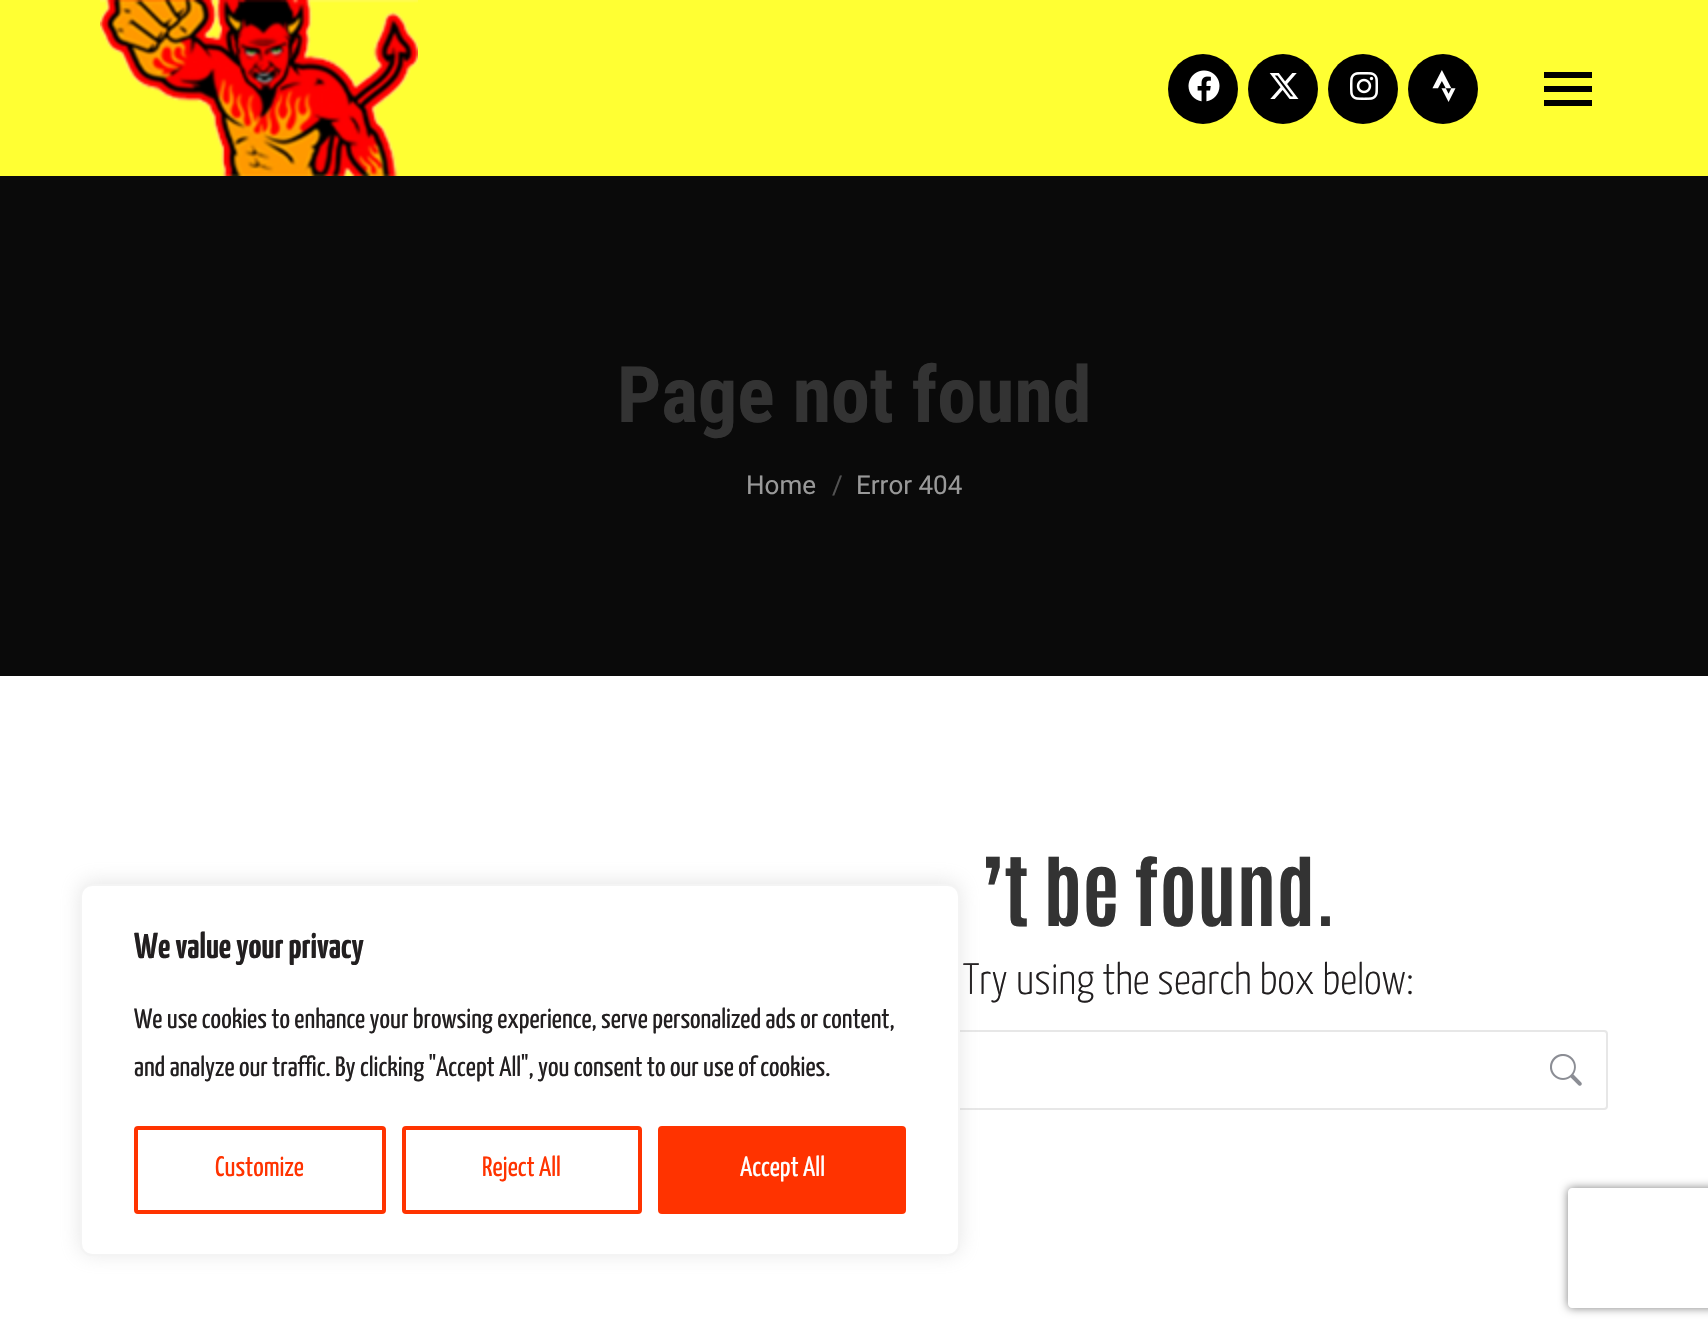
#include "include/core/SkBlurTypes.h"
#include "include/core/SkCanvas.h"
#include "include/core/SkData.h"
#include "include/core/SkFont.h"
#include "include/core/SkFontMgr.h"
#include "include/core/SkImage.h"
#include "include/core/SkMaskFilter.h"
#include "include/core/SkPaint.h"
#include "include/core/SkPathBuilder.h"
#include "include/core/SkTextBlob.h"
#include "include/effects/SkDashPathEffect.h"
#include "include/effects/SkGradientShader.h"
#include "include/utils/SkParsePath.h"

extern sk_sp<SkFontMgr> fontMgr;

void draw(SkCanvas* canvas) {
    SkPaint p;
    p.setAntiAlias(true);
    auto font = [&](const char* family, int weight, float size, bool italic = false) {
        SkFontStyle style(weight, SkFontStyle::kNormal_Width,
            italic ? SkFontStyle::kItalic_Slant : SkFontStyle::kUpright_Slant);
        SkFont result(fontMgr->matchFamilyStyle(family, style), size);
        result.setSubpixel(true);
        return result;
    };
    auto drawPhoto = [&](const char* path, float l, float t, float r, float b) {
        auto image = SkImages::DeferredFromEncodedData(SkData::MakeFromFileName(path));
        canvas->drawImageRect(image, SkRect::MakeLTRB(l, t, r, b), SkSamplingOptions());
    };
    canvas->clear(0xFFFFFFFF);
    p.setColor(0xFFFFFF33);
    canvas->drawRect(SkRect::MakeLTRB(0, 0, 1708, 176), p);
    drawPhoto("media/1.png", 100, 0, 418, 176);
    p.setColor(0xFF000000);
    canvas->drawCircle(1203, 89, 35, p);
    drawPhoto("media/2.png", 1188, 70, 1220, 102);
    canvas->drawCircle(1283, 89, 35, p);
    drawPhoto("media/3.png", 1269, 73, 1299, 99);
    canvas->drawCircle(1363, 89, 35, p);
    drawPhoto("media/4.png", 1350, 72, 1378, 100);
    canvas->drawCircle(1443, 89, 35, p);
    drawPhoto("media/5.png", 1432, 70, 1456, 102);
    {
        const struct { float l, t, r, b; SkColor color; } items[] = {
            {1544, 72, 1592, 78, 0xFF000000},
            {1544, 86, 1592, 92, 0xFF000000},
            {1544, 100, 1592, 106, 0xFF000000},
            {0, 176, 1708, 676, 0xFF0A0A0A},
        };
        for (auto [l, t, r, b, color] : items) {
            p.setColor(color);
            canvas->drawRect(SkRect::MakeLTRB(l, t, r, b), p);
        }
    }
    auto font1 = font("Roboto Condensed", 700, 78);
    p.setColor(0xFF333333);
    canvas->drawString("Page not found", 617, 422, font1, p);
    auto font2 = font("Roboto", 400, 26);
    p.setColor(0xFF999999);
    canvas->drawString("Home", 746, 494, font2, p);
    p.setColor(0xFF525252);
    canvas->drawString("/", 832, 494, font2, p);
    p.setColor(0xFF999999);
    canvas->drawString("Error 404", 856, 494, font2, p);
    auto font3 = font("Antonio", 700, 80);
    p.setColor(0xFF333333);
    canvas->drawString("’t be found.", 981, 926, font3, p);
    auto font4 = font("Yanone Kaffeesatz", 300, 44);
    p.setColor(0xFF221F20);
    canvas->drawString("Try using the search box below:", 963, 994, font4, p);
    p.setStyle(SkPaint::kStroke_Style);
    p.setStrokeWidth(2);
    p.setColor(0xFFE7E7E7);
    canvas->drawRoundRect(SkRect::MakeLTRB(101, 1031, 1607, 1109), 3, 3, p);
    drawPhoto("media/6.png", 1550, 1054, 1582, 1086);
    p.setStyle(SkPaint::kFill_Style);
    p.setColor(0x4DACABAB);
    p.setMaskFilter(SkMaskFilter::MakeBlur(kNormal_SkBlurStyle, 10));
    canvas->drawRoundRect(SkRect::MakeLTRB(80, 882, 960, 1254), 12, 12, p);
    p.setMaskFilter(nullptr);
    p.setColor(0xFFFFFFFF);
    canvas->drawRoundRect(SkRect::MakeLTRB(81, 885, 959, 1255), 11, 11, p);
    p.setStyle(SkPaint::kStroke_Style);
    p.setColor(0xFFF4F4F4);
    canvas->drawRoundRect(SkRect::MakeLTRB(81, 885, 959, 1255), 11, 11, p);
    auto font5 = font("Yanone Kaffeesatz", 700, 36);
    p.setStyle(SkPaint::kFill_Style);
    p.setColor(0xFF221F20);
    canvas->drawString("We value your privacy", 134, 958, font5, p);
    auto font6 = font("Yanone Kaffeesatz", 400, 28);
    canvas->drawString("We use cookies to enhance your browsing experience, serve personalized ads or content,", 134, 1028, font6, p);
    canvas->drawString("and analyze our traffic. By clicking \"Accept All\", you consent to our use of cookies.", 134, 1076, font6, p);
    p.setStyle(SkPaint::kStroke_Style);
    p.setStrokeWidth(4);
    p.setColor(0xFFFF3300);
    canvas->drawRoundRect(SkRect::MakeLTRB(136, 1128, 384, 1212), 2, 2, p);
    p.setStyle(SkPaint::kFill_Style);
    canvas->drawString("Customize", 215, 1176, font6, p);
    p.setStyle(SkPaint::kStroke_Style);
    canvas->drawRoundRect(SkRect::MakeLTRB(404, 1128, 640, 1212), 2, 2, p);
    p.setStyle(SkPaint::kFill_Style);
    canvas->drawString("Reject All", 482, 1176, font6, p);
    canvas->drawRoundRect(SkRect::MakeLTRB(660, 1128, 904, 1212), 2, 2, p);
    p.setStyle(SkPaint::kStroke_Style);
    canvas->drawRoundRect(SkRect::MakeLTRB(660, 1128, 904, 1212), 2, 2, p);
    p.setStyle(SkPaint::kFill_Style);
    p.setColor(0xFFFFFFFF);
    canvas->drawString("Accept All", 740, 1176, font6, p);
    canvas->save();
    canvas->clipPath(SkPathBuilder(SkPathFillType::kEvenOdd).moveTo(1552, 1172).lineTo(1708, 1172).lineTo(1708, 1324).lineTo(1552, 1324).close().moveTo(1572, 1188).lineTo(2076, 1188).cubicTo(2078, 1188, 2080, 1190, 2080, 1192).lineTo(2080, 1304).cubicTo(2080, 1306, 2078, 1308, 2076, 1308).lineTo(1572, 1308).cubicTo(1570, 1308, 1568, 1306, 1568, 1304).lineTo(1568, 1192).cubicTo(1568, 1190, 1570, 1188, 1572, 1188).close().detach(), true);
    p.setColor(0xFF808080);
    p.setMaskFilter(SkMaskFilter::MakeBlur(kNormal_SkBlurStyle, 5));
    canvas->drawRoundRect(SkRect::MakeLTRB(1568, 1188, 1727, 1308), 4, 4, p);
    p.setMaskFilter(nullptr);
    canvas->restore();
}
